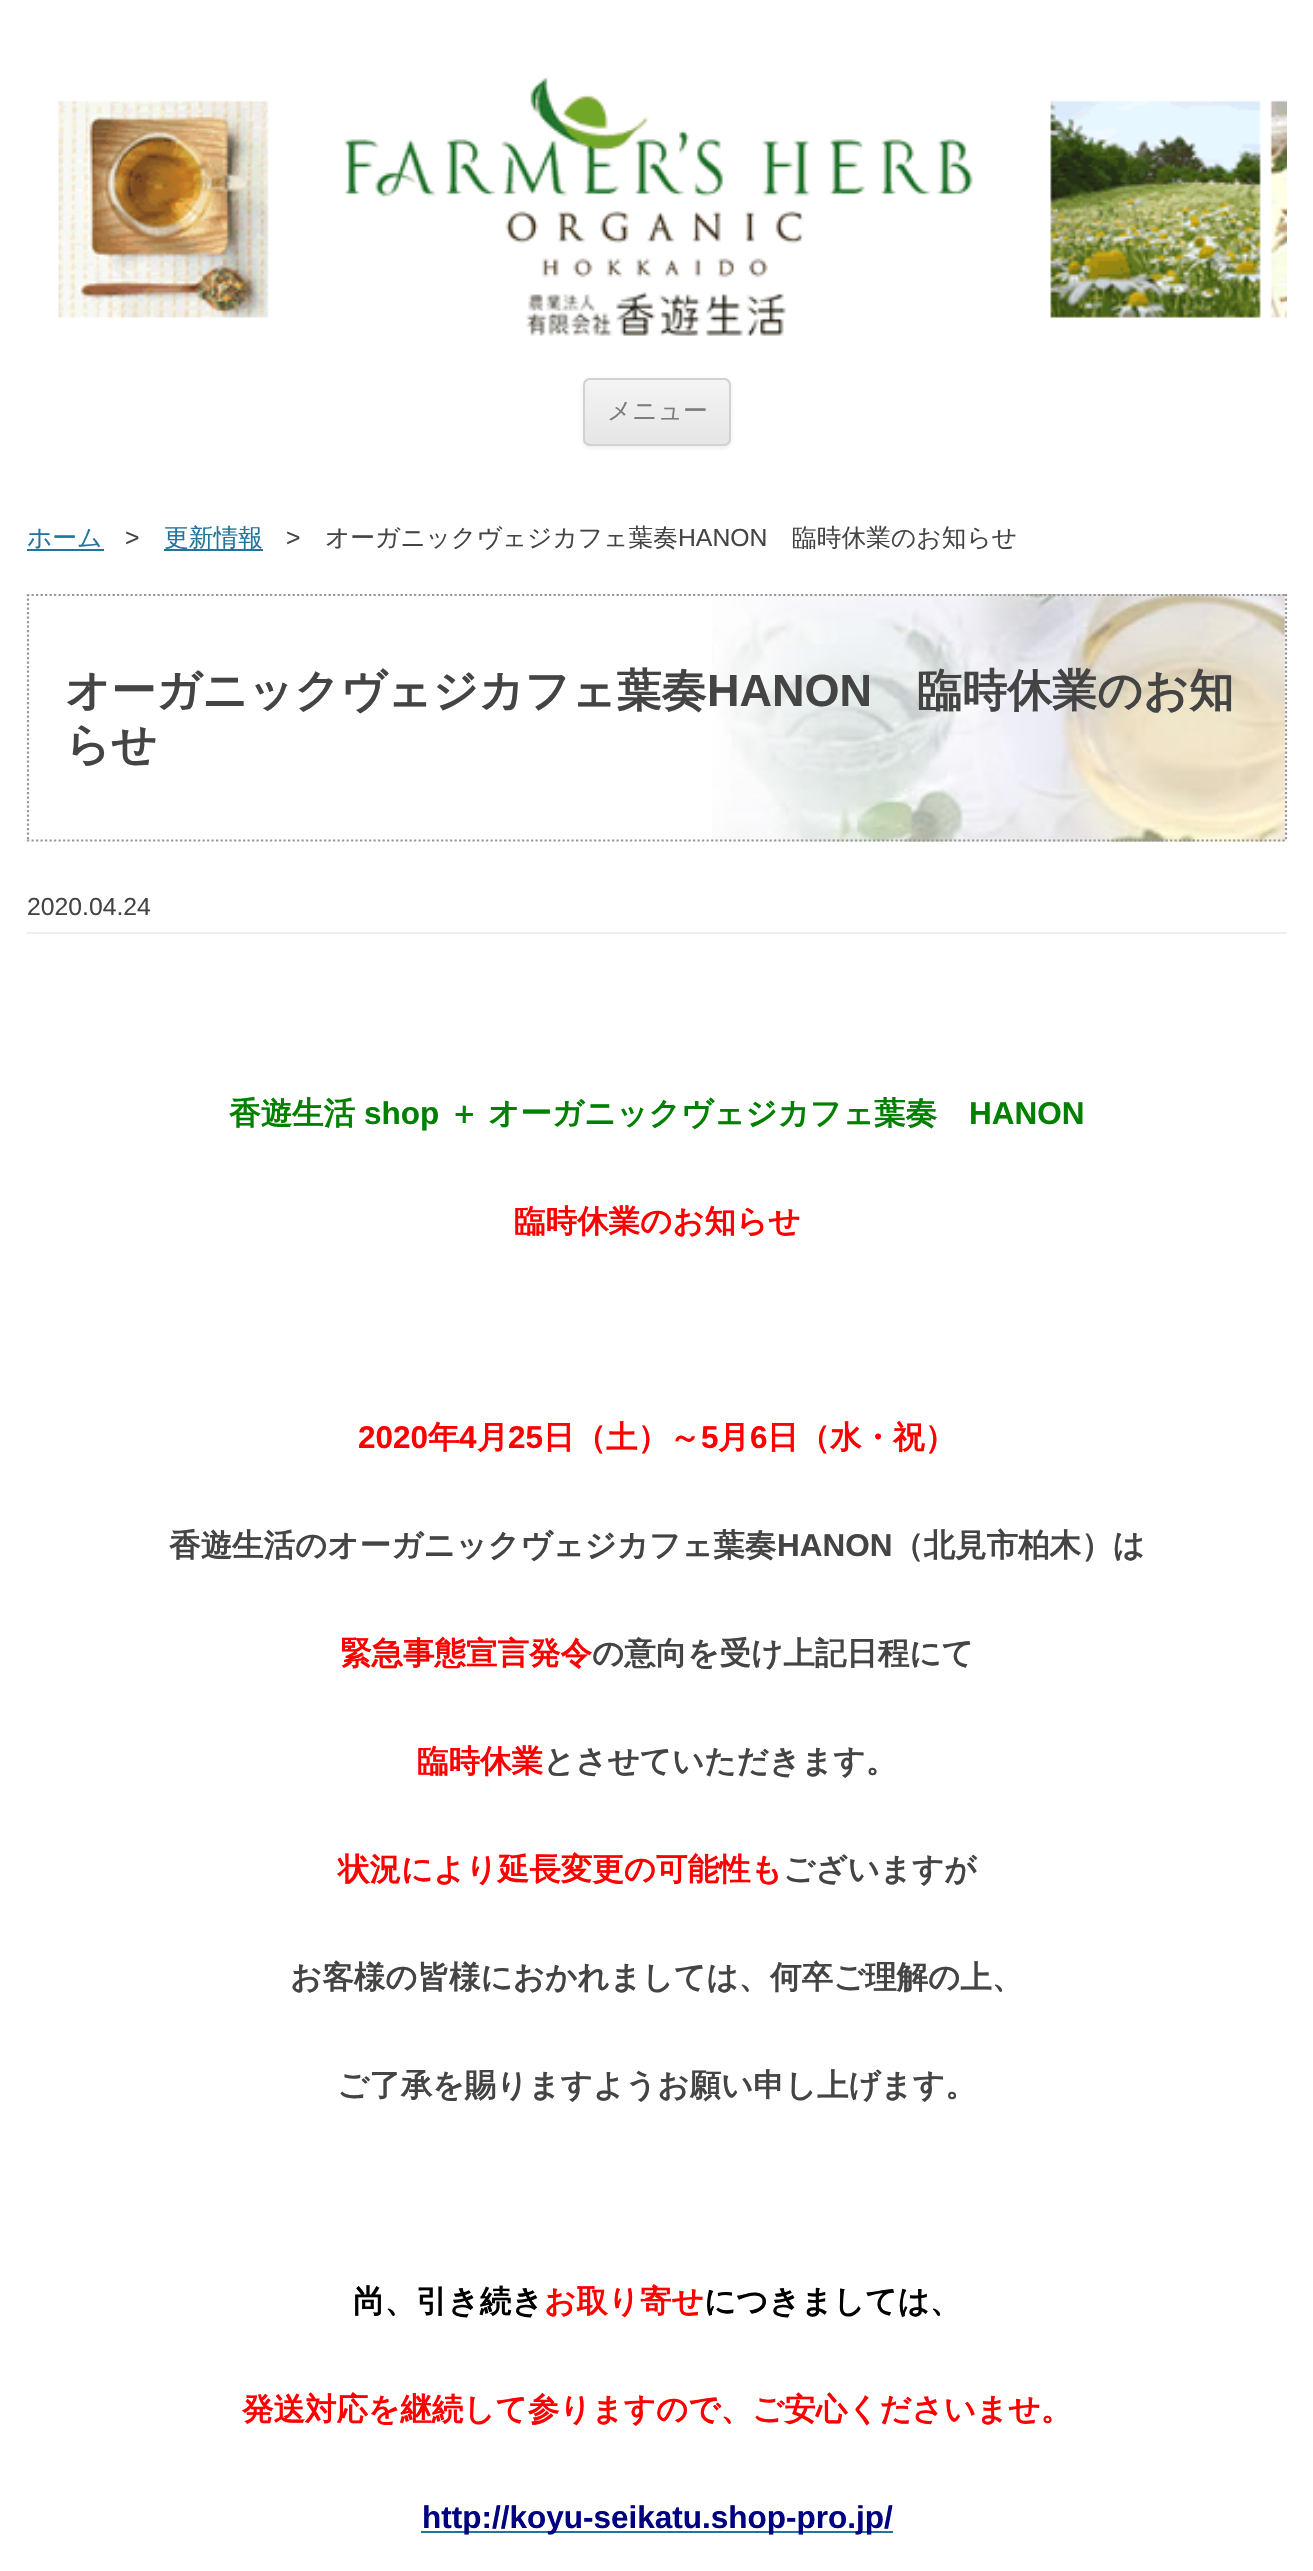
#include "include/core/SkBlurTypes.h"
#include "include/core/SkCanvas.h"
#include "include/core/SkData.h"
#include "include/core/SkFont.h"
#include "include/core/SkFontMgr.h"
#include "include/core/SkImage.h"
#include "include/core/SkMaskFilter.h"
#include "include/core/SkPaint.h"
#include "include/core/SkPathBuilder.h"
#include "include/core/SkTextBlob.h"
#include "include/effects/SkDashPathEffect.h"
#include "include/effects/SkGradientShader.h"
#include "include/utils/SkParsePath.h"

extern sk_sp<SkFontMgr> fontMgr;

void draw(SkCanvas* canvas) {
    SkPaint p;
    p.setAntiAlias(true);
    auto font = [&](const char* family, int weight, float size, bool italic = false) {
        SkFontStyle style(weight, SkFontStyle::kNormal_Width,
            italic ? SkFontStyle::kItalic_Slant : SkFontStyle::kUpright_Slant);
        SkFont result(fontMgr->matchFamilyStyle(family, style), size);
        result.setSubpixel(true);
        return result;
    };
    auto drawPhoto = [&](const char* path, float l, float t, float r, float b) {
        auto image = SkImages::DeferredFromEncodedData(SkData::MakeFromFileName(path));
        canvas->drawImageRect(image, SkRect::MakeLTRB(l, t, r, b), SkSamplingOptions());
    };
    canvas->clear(0xFFFFFFFF);
    drawPhoto("media/1.png", 58, 77, 1287, 336);
    p.setColor(0x1A404040);
    p.setMaskFilter(SkMaskFilter::MakeBlur(kNormal_SkBlurStyle, 2));
    canvas->drawRoundRect(SkRect::MakeLTRB(583, 380, 731, 448), 7, 7, p);
    p.setMaskFilter(nullptr);
    p.setColor(0xFFE6E6E6);
    canvas->drawRoundRect(SkRect::MakeLTRB(583, 378, 731, 446), 7, 7, p);
    canvas->save();
    canvas->clipPath(SkPathBuilder().moveTo(590, 378).lineTo(724, 378).cubicTo(728, 378, 731, 381, 731, 385).lineTo(731, 439).cubicTo(731, 443, 728, 446, 724, 446).lineTo(590, 446).cubicTo(586, 446, 583, 443, 583, 439).lineTo(583, 385).cubicTo(583, 381, 586, 378, 590, 378).close().detach(), true);
    {
        const SkColor colors[] = {0xFFF4F4F4, 0xFFE6E6E6};
        const float stops[] = {0, 1};
        const SkPoint ends[] = {{657, 380}, {657, 443}};
        p.setShader(SkGradientShader::MakeLinear(ends, colors, stops, 2, SkTileMode::kClamp));
        p.setAlpha(255);
    }
    canvas->drawRect(SkRect::MakeLTRB(583, 380, 731, 443), p);
    canvas->restore();
    p.setStyle(SkPaint::kStroke_Style);
    p.setStrokeWidth(2);
    p.setShader(nullptr);
    p.setColor(0xFFD2D2D2);
    canvas->drawRoundRect(SkRect::MakeLTRB(584, 379, 730, 445), 6, 6, p);
    auto font1 = font("WenQuanYi Zen Hei", 500, 24.75f);
    p.setStyle(SkPaint::kFill_Style);
    p.setColor(0xFF7C7C7C);
    canvas->drawString("メニュー", 607, 419, font1, p);
    p.setColor(0xFF21759B);
    canvas->drawString("ホーム", 27, 546, font1, p);
    canvas->drawRect(SkRect::MakeLTRB(27, 549, 104, 551), p);
    auto font2 = font("Liberation Sans", 400, 24.75f);
    p.setColor(0xFF444444);
    canvas->drawString(">", 125, 546, font2, p);
    p.setColor(0xFF21759B);
    canvas->drawRect(SkRect::MakeLTRB(164, 549, 263, 551), p);
    canvas->drawString("更新情報", 164, 546, font1, p);
    p.setColor(0xFF444444);
    canvas->drawString(">", 286, 546, font2, p);
    canvas->drawString("オーガニックヴェジカフェ葉奏", 325, 546, font1, p);
    canvas->drawString("HANON", 678, 546, font2, p);
    canvas->drawString("臨時休業のお知らせ", 792, 546, font1, p);
    drawPhoto("media/2.png", 712, 594, 1285, 842);
    p.setStyle(SkPaint::kStroke_Style);
    p.setStrokeWidth(2.2f);
    p.setColor(0xFF999999);
    p.setPathEffect(SkDashPathEffect::Make({{2.25f, 2.25f}}, 0));
    canvas->drawPath(SkPathBuilder().moveTo(27, 595).lineTo(1287, 595).detach(), p);
    p.setPathEffect(nullptr);
    p.setPathEffect(SkDashPathEffect::Make({{2.25f, 2.25f}}, 0));
    canvas->drawPath(SkPathBuilder().moveTo(1286, 594).lineTo(1286, 841.5f).detach(), p);
    p.setPathEffect(nullptr);
    p.setPathEffect(SkDashPathEffect::Make({{2.25f, 2.25f}}, 0));
    canvas->drawPath(SkPathBuilder().moveTo(27, 840.5f).lineTo(1287, 840.5f).detach(), p);
    p.setPathEffect(nullptr);
    p.setPathEffect(SkDashPathEffect::Make({{2.25f, 2.25f}}, 0));
    canvas->drawPath(SkPathBuilder().moveTo(28, 594).lineTo(28, 841.5f).detach(), p);
    p.setPathEffect(nullptr);
    auto font3 = font("WenQuanYi Zen Hei", 700, 45);
    p.setStyle(SkPaint::kFill_Style);
    p.setColor(0xFF444444);
    canvas->drawString("オーガニックヴェジカフェ葉奏", 65, 706, font3, p);
    auto font4 = font("Liberation Sans", 700, 45);
    canvas->drawString("HANON", 707, 706, font4, p);
    canvas->drawString("臨時休業のお知", 917, 706, font3, p);
    canvas->drawString("らせ", 65, 760, font3, p);
    p.setColor(0xFFEEEEEE);
    canvas->drawRect(SkRect::MakeLTRB(27, 932, 1287, 934), p);
    p.setColor(0xFF444444);
    canvas->drawString("2020.04.24", 27, 915, font2, p);
    auto font5 = font("WenQuanYi Zen Hei", 700, 31.5f);
    p.setColor(0xFF008000);
    canvas->drawString("香遊生活", 229, 1124, font5, p);
    auto font6 = font("Liberation Sans", 700, 31.5f);
    canvas->drawString("shop", 364, 1124, font6, p);
    canvas->drawString("＋", 448, 1124, font5, p);
    canvas->drawString("オーガニックヴェジカフェ葉奏", 488, 1124, font5, p);
    canvas->drawString("HANON", 969, 1124, font6, p);
    p.setColor(0xFFFF0000);
    canvas->drawString("臨時休業のお知らせ", 514, 1232, font5, p);
    canvas->drawString("2020", 358, 1448, font6, p);
    canvas->drawString("年", 428, 1448, font5, p);
    canvas->drawString("4", 459, 1448, font6, p);
    canvas->drawString("月", 477, 1448, font5, p);
    canvas->drawString("25", 508, 1448, font6, p);
    canvas->drawString("日（土）～", 543, 1448, font5, p);
    canvas->drawString("5", 701, 1448, font6, p);
    canvas->drawString("月", 718, 1448, font5, p);
    canvas->drawString("6", 750, 1448, font6, p);
    canvas->drawString("日（水・祝）", 767, 1448, font5, p);
    p.setColor(0xFF444444);
    canvas->drawString("香遊生活のオーガニックヴェジカフェ葉奏", 169, 1556, font5, p);
    canvas->drawString("HANON", 777, 1556, font6, p);
    canvas->drawString("（北見市柏木）は", 892, 1556, font5, p);
    p.setColor(0xFFFF0000);
    canvas->drawString("緊急事態宣言発令", 340, 1664, font5, p);
    p.setColor(0xFF444444);
    canvas->drawString("の意向を受け上記日程にて", 592, 1664, font5, p);
    p.setColor(0xFFFF0000);
    canvas->drawString("臨時休業", 417, 1772, font5, p);
    p.setColor(0xFF444444);
    canvas->drawString("とさせていただきます。", 543, 1772, font5, p);
    p.setColor(0xFFFF0000);
    canvas->drawString("状況により延長変更の可能性も", 338, 1880, font5, p);
    p.setColor(0xFF444444);
    {
        const struct { const char* s; float x, y; } items[] = {
            {"ございますが", 783, 1880},
            {"お客様の皆様におかれましては、何卒ご理解の上、", 290, 1988},
            {"ご了承を賜りますようお願い申し上げます。", 337, 2096},
        };
        for (auto [s, x, y] : items) {
            canvas->drawString(s, x, y, font5, p);
        }
    }
    p.setColor(0xFF000000);
    canvas->drawString("尚、引き続き", 353, 2312, font5, p);
    p.setColor(0xFFFF0000);
    canvas->drawString("お取り寄せ", 544, 2312, font5, p);
    p.setColor(0xFF000000);
    canvas->drawString("につきましては、", 704, 2312, font5, p);
    p.setColor(0xFFFF0000);
    canvas->drawString("発送対応を継続して参りますので、ご安心くださいませ。", 242, 2420, font5, p);
    p.setColor(0xFF21759B);
    canvas->drawRect(SkRect::MakeLTRB(421, 2531, 893, 2533), p);
    p.setColor(0xFF000080);
    canvas->drawString("http://koyu-seikatu.shop-pro.jp/", 422, 2528, font6, p);
}
